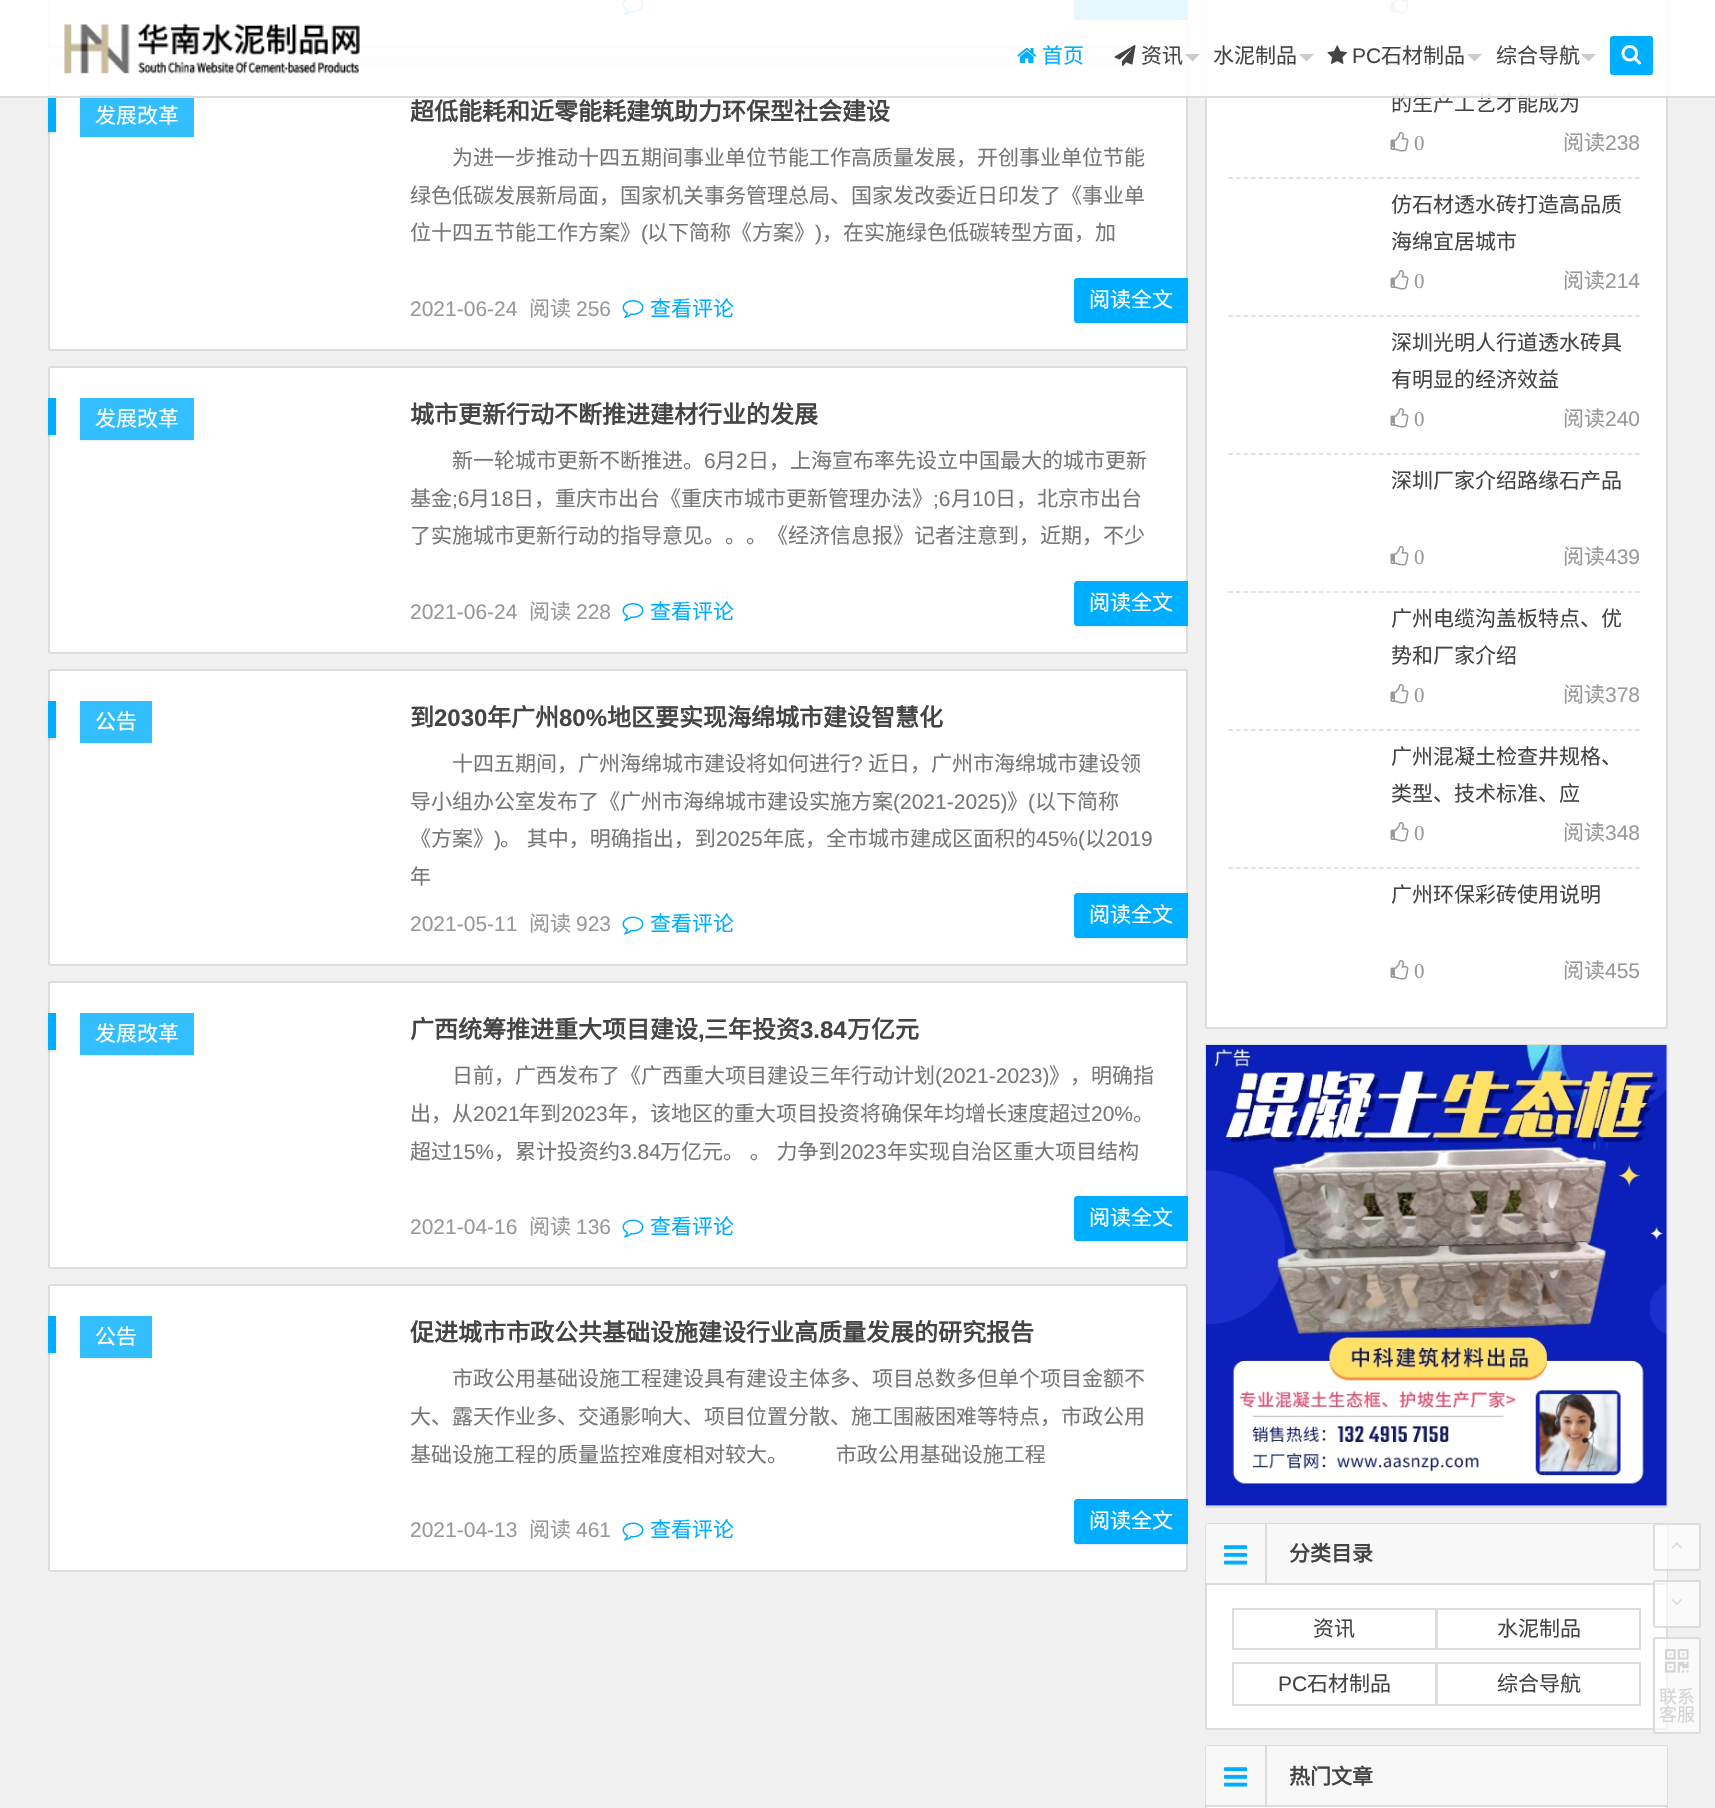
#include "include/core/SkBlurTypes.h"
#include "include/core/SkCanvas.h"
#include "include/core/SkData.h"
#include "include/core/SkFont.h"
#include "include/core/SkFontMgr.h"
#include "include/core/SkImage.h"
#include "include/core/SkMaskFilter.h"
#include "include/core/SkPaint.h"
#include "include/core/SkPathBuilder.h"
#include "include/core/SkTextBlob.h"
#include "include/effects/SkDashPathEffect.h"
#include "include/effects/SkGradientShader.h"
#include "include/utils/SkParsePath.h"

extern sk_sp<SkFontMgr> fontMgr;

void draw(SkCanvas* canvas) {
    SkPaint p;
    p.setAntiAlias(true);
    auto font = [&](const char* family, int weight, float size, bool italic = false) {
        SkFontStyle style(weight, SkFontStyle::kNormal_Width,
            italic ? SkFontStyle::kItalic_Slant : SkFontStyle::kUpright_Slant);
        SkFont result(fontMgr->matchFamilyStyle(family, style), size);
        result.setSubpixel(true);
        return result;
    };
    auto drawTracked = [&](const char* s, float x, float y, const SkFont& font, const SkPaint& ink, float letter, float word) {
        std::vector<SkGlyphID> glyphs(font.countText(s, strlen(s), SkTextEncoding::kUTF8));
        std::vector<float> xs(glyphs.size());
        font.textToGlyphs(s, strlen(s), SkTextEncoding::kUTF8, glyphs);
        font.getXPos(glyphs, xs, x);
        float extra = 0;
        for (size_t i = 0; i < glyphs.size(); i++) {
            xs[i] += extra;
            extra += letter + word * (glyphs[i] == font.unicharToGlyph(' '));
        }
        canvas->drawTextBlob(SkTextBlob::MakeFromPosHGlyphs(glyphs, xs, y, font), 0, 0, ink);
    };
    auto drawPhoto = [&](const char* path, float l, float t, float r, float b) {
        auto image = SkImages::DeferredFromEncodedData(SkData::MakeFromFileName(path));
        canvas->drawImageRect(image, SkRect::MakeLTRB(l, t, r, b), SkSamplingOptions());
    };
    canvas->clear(0xFFF1F1F1);
    p.setColor(0xFFFFFFFF);
    canvas->drawRoundRect(SkRect::MakeLTRB(49, -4, 1187, 47), 2, 2, p);
    p.setStyle(SkPaint::kStroke_Style);
    p.setStrokeWidth(2);
    p.setColor(0xFFDDDDDD);
    canvas->drawRoundRect(SkRect::MakeLTRB(49, -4, 1187, 47), 2, 2, p);
    drawPhoto("media/6.png", 622, 0, 644, 15);
    p.setStyle(SkPaint::kFill_Style);
    p.setColor(0x1A000000);
    p.setMaskFilter(SkMaskFilter::MakeBlur(kNormal_SkBlurStyle, 1));
    canvas->drawRoundRect(SkRect::MakeLTRB(1074, -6, 1188, 21), 3, 3, p);
    p.setMaskFilter(nullptr);
    p.setColor(0xFF00AEFF);
    canvas->drawPath(SkPathBuilder().moveTo(1077, -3).lineTo(1188, -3).lineTo(1188, 20).lineTo(1077, 20).cubicTo(1075.5f, 20, 1074, 18.5f, 1074, 17).lineTo(1074, 0).cubicTo(1074, -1.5f, 1075.5f, -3, 1077, -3).close().detach(), p);
    p.setColor(0xFFFFFFFF);
    canvas->drawRoundRect(SkRect::MakeLTRB(49, 64, 1187, 350), 2, 2, p);
    p.setStyle(SkPaint::kStroke_Style);
    p.setColor(0xFFDDDDDD);
    canvas->drawRoundRect(SkRect::MakeLTRB(49, 64, 1187, 350), 2, 2, p);
    p.setStyle(SkPaint::kFill_Style);
    p.setColor(0x1A333333);
    p.setMaskFilter(SkMaskFilter::MakeBlur(kNormal_SkBlurStyle, 1));
    canvas->drawRect(SkRect::MakeLTRB(80, 96, 194, 138), p);
    p.setMaskFilter(nullptr);
    p.setColor(0xFF33BEFF);
    canvas->drawRect(SkRect::MakeLTRB(80, 95, 194, 137), p);
    p.setColor(0x1A000000);
    p.setMaskFilter(SkMaskFilter::MakeBlur(kNormal_SkBlurStyle, 1));
    canvas->drawRect(SkRect::MakeLTRB(48, 96, 56, 134), p);
    p.setMaskFilter(nullptr);
    p.setColor(0xFF00AEFF);
    canvas->drawRect(SkRect::MakeLTRB(48, 95, 56, 132), p);
    p.setColor(0xFFFFFFFF);
    canvas->drawRoundRect(SkRect::MakeLTRB(1206, -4, 1667, 1028), 2, 2, p);
    p.setStyle(SkPaint::kStroke_Style);
    p.setColor(0xFFDDDDDD);
    canvas->drawRoundRect(SkRect::MakeLTRB(1206, -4, 1667, 1028), 2, 2, p);
    p.setStrokeWidth(1.5f);
    p.setColor(0xFFDADADA);
    p.setPathEffect(SkDashPathEffect::Make({{4.5f, 3.03f}}, 0));
    canvas->drawPath(SkPathBuilder().moveTo(1228.5f, 40).lineTo(1639.5f, 40).detach(), p);
    p.setPathEffect(nullptr);
    drawPhoto("media/9.png", 1390, 0, 1409, 14);
    auto font1 = font("Noto Sans CJK SC", 400, 21);
    p.setStyle(SkPaint::kFill_Style);
    p.setColor(0xFF444444);
    canvas->drawString("的生产工艺才能成为", 1391, 111, font1, p);
    p.setColor(0xE6FFFFFF);
    canvas->drawRect(SkRect::MakeLTRB(0, 0, 1715, 96), p);
    p.setColor(0xFFDDDDDD);
    canvas->drawRect(SkRect::MakeLTRB(0, 96, 1715, 98), p);
    drawPhoto("media/1.png", 64, 23, 360, 74);
    drawPhoto("media/2.png", 1017, 48, 1037, 63);
    p.setColor(0xFF00AEFF);
    canvas->drawString("首页", 1042, 63, font1, p);
    drawPhoto("media/3.png", 1114, 45, 1136, 66);
    p.setColor(0xFF444444);
    canvas->drawString("资讯", 1141, 63, font1, p);
    p.setColor(0xFFCCCCCC);
    canvas->drawPath(SkPathBuilder().moveTo(1185, 54).lineTo(1200, 54).lineTo(1192.5f, 61.5f).close().detach(), p);
    p.setColor(0xFF444444);
    canvas->drawString("水泥制品", 1213, 63, font1, p);
    p.setColor(0xFFCCCCCC);
    canvas->drawPath(SkPathBuilder().moveTo(1299, 54).lineTo(1314, 54).lineTo(1306.5f, 61.5f).close().detach(), p);
    drawPhoto("media/4.png", 1327, 45, 1347, 64);
    auto font2 = font("Liberation Sans", 400, 21);
    p.setColor(0xFF444444);
    canvas->drawString("PC", 1352, 63, font2, p);
    canvas->drawString("石材制品", 1381, 63, font1, p);
    p.setColor(0xFFCCCCCC);
    canvas->drawPath(SkPathBuilder().moveTo(1467, 54).lineTo(1482, 54).lineTo(1474.5f, 61.5f).close().detach(), p);
    p.setColor(0xFF444444);
    canvas->drawString("综合导航", 1496, 63, font1, p);
    p.setColor(0xFFCCCCCC);
    canvas->drawPath(SkPathBuilder().moveTo(1581, 54).lineTo(1596, 54).lineTo(1588.5f, 61.5f).close().detach(), p);
    p.setColor(0x0A000000);
    p.setMaskFilter(SkMaskFilter::MakeBlur(kNormal_SkBlurStyle, 1));
    canvas->drawRoundRect(SkRect::MakeLTRB(1610, 38, 1653, 77), 3, 3, p);
    p.setMaskFilter(nullptr);
    p.setColor(0xFF00AEFF);
    canvas->drawRoundRect(SkRect::MakeLTRB(1610, 36, 1653, 75), 3, 3, p);
    drawPhoto("media/5.png", 1621, 45, 1641, 65);
    p.setColor(0xFFFFFFFF);
    canvas->drawString("发展改革", 95, 123, font1, p);
    auto font3 = font("Noto Sans CJK SC", 700, 24);
    p.setColor(0xFF444444);
    canvas->drawString("超低能耗和近零能耗建筑助力环保型社会建设", 410, 120, font3, p);
    p.setColor(0xFF777777);
    {
        const struct { const char* s; float x, y; } items[] = {
            {"为进一步推动十四五期间事业单位节能工作高质量发展，开创事业单位节能", 452, 165},
            {"绿色低碳发展新局面，国家机关事务管理总局、国家发改委近日印发了《事业单", 410, 203},
            {"位十四五节能工作方案》", 410, 240},
        };
        for (auto [s, x, y] : items) {
            canvas->drawString(s, x, y, font1, p);
        }
    }
    canvas->drawString("(", 641, 240, font2, p);
    canvas->drawString("以下简称《方案》", 647, 240, font1, p);
    canvas->drawString(")", 815, 240, font2, p);
    canvas->drawString("，在实施绿色低碳转型方面，加", 822, 240, font1, p);
    p.setColor(0xFF999999);
    canvas->drawString("2021-06-24", 410, 316, font2, p);
    canvas->drawString("阅读", 529, 316, font1, p);
    canvas->drawString("256", 576, 316, font2, p);
    drawPhoto("media/7.png", 622, 300, 644, 318);
    p.setColor(0xFF00AEFF);
    canvas->drawString("查看评论", 650, 316, font1, p);
    p.setColor(0x1A000000);
    p.setMaskFilter(SkMaskFilter::MakeBlur(kNormal_SkBlurStyle, 1));
    canvas->drawRoundRect(SkRect::MakeLTRB(1074, 279, 1188, 324), 3, 3, p);
    p.setMaskFilter(nullptr);
    p.setColor(0xFF00AEFF);
    canvas->drawPath(SkPathBuilder().moveTo(1077, 278).lineTo(1188, 278).lineTo(1188, 323).lineTo(1077, 323).cubicTo(1075.5f, 323, 1074, 321.5f, 1074, 320).lineTo(1074, 281).cubicTo(1074, 279.5f, 1075.5f, 278, 1077, 278).close().detach(), p);
    p.setColor(0xFFFFFFFF);
    canvas->drawString("阅读全文", 1089, 307, font1, p);
    canvas->drawRoundRect(SkRect::MakeLTRB(49, 367, 1187, 653), 2, 2, p);
    p.setStyle(SkPaint::kStroke_Style);
    p.setStrokeWidth(2);
    p.setColor(0xFFDDDDDD);
    canvas->drawRoundRect(SkRect::MakeLTRB(49, 367, 1187, 653), 2, 2, p);
    p.setStyle(SkPaint::kFill_Style);
    p.setColor(0x1A333333);
    p.setMaskFilter(SkMaskFilter::MakeBlur(kNormal_SkBlurStyle, 1));
    canvas->drawRect(SkRect::MakeLTRB(80, 399, 194, 441), p);
    p.setMaskFilter(nullptr);
    p.setColor(0xFF33BEFF);
    canvas->drawRect(SkRect::MakeLTRB(80, 398, 194, 440), p);
    p.setColor(0xFFFFFFFF);
    canvas->drawString("发展改革", 95, 426, font1, p);
    p.setColor(0xFF444444);
    canvas->drawString("城市更新行动不断推进建材行业的发展", 410, 423, font3, p);
    p.setColor(0x1A000000);
    p.setMaskFilter(SkMaskFilter::MakeBlur(kNormal_SkBlurStyle, 1));
    canvas->drawRect(SkRect::MakeLTRB(48, 399, 56, 437), p);
    p.setMaskFilter(nullptr);
    p.setColor(0xFF00AEFF);
    canvas->drawRect(SkRect::MakeLTRB(48, 398, 56, 435), p);
    p.setColor(0xFF777777);
    canvas->drawString("新一轮城市更新不断推进。", 452, 468, font1, p);
    canvas->drawString("6", 704, 468, font2, p);
    canvas->drawString("月", 715, 468, font1, p);
    canvas->drawString("2", 736, 468, font2, p);
    canvas->drawString("日，上海宣布率先设立中国最大的城市更新", 748, 468, font1, p);
    canvas->drawString("基金", 410, 506, font1, p);
    canvas->drawString(";6", 452, 506, font2, p);
    canvas->drawString("月", 469, 506, font1, p);
    canvas->drawString("18", 490, 506, font2, p);
    canvas->drawString("日，重庆市出台《重庆市城市更新管理办法》", 513, 506, font1, p);
    canvas->drawString(";6", 933, 506, font2, p);
    canvas->drawString("月", 951, 506, font1, p);
    canvas->drawString("10", 972, 506, font2, p);
    canvas->drawString("日，北京市出台", 995, 506, font1, p);
    canvas->drawString("了实施城市更新行动的指导意见。。。《经济信息报》记者注意到，近期，不少", 410, 543, font1, p);
    p.setColor(0xFF999999);
    canvas->drawString("2021-06-24", 410, 619, font2, p);
    canvas->drawString("阅读", 529, 619, font1, p);
    canvas->drawString("228", 576, 619, font2, p);
    drawPhoto("media/7.png", 622, 603, 644, 621);
    p.setColor(0xFF00AEFF);
    canvas->drawString("查看评论", 650, 619, font1, p);
    p.setColor(0x1A000000);
    p.setMaskFilter(SkMaskFilter::MakeBlur(kNormal_SkBlurStyle, 1));
    canvas->drawRoundRect(SkRect::MakeLTRB(1074, 582, 1188, 627), 3, 3, p);
    p.setMaskFilter(nullptr);
    p.setColor(0xFF00AEFF);
    canvas->drawPath(SkPathBuilder().moveTo(1077, 581).lineTo(1188, 581).lineTo(1188, 626).lineTo(1077, 626).cubicTo(1075.5f, 626, 1074, 624.5f, 1074, 623).lineTo(1074, 584).cubicTo(1074, 582.5f, 1075.5f, 581, 1077, 581).close().detach(), p);
    p.setColor(0xFFFFFFFF);
    canvas->drawString("阅读全文", 1089, 610, font1, p);
    canvas->drawRoundRect(SkRect::MakeLTRB(49, 670, 1187, 965), 2, 2, p);
    p.setStyle(SkPaint::kStroke_Style);
    p.setColor(0xFFDDDDDD);
    canvas->drawRoundRect(SkRect::MakeLTRB(49, 670, 1187, 965), 2, 2, p);
    p.setStyle(SkPaint::kFill_Style);
    p.setColor(0x1A333333);
    p.setMaskFilter(SkMaskFilter::MakeBlur(kNormal_SkBlurStyle, 1));
    canvas->drawRect(SkRect::MakeLTRB(80, 702, 152, 744), p);
    p.setMaskFilter(nullptr);
    p.setColor(0xFF33BEFF);
    canvas->drawRect(SkRect::MakeLTRB(80, 701, 152, 743), p);
    p.setColor(0xFFFFFFFF);
    canvas->drawString("公告", 95, 729, font1, p);
    p.setColor(0xFF444444);
    canvas->drawString("到", 410, 726, font3, p);
    auto font4 = font("Liberation Sans", 700, 24);
    canvas->drawString("2030", 434, 726, font4, p);
    canvas->drawString("年广州", 487, 726, font3, p);
    canvas->drawString("80%", 559, 726, font4, p);
    canvas->drawString("地区要实现海绵城市建设智慧化", 607, 726, font3, p);
    p.setColor(0x1A000000);
    p.setMaskFilter(SkMaskFilter::MakeBlur(kNormal_SkBlurStyle, 1));
    canvas->drawRect(SkRect::MakeLTRB(48, 702, 56, 740), p);
    p.setMaskFilter(nullptr);
    p.setColor(0xFF00AEFF);
    canvas->drawRect(SkRect::MakeLTRB(48, 701, 56, 738), p);
    p.setColor(0xFF777777);
    canvas->drawString("十四五期间，广州海绵城市建设将如何进行", 452, 771, font1, p);
    canvas->drawString("?", 851, 771, font2, p);
    canvas->drawString("近日，广州市海绵城市建设领", 868, 771, font1, p);
    canvas->drawString("导小组办公室发布了《广州市海绵城市建设实施方案", 410, 809, font1, p);
    canvas->drawString("(2021-2025)", 893, 809, font2, p);
    canvas->drawString("》", 1007, 809, font1, p);
    canvas->drawString("(", 1028, 809, font2, p);
    canvas->drawString("以下简称", 1035, 809, font1, p);
    canvas->drawString("《方案》", 410, 846, font1, p);
    canvas->drawString(")", 494, 846, font2, p);
    drawTracked("。 其中，明确指出，到", 500, 846, font1, p, 0, 1);
    canvas->drawString("2025", 716, 846, font2, p);
    canvas->drawString("年底，全市城市建成区面积的", 763, 846, font1, p);
    canvas->drawString("45%(", 1036, 846, font2, p);
    canvas->drawString("以", 1085, 846, font1, p);
    canvas->drawString("2019", 1106, 846, font2, p);
    canvas->drawString("年", 410, 884, font1, p);
    p.setColor(0xFF999999);
    canvas->drawString("2021-05-11", 410, 931, font2, p);
    canvas->drawString("阅读", 529, 931, font1, p);
    canvas->drawString("923", 576, 931, font2, p);
    drawPhoto("media/8.png", 622, 916, 644, 935);
    p.setColor(0xFF00AEFF);
    canvas->drawString("查看评论", 650, 931, font1, p);
    p.setColor(0x1A000000);
    p.setMaskFilter(SkMaskFilter::MakeBlur(kNormal_SkBlurStyle, 1));
    canvas->drawRoundRect(SkRect::MakeLTRB(1074, 894, 1188, 939), 3, 3, p);
    p.setMaskFilter(nullptr);
    p.setColor(0xFF00AEFF);
    canvas->drawPath(SkPathBuilder().moveTo(1077, 893).lineTo(1188, 893).lineTo(1188, 938).lineTo(1077, 938).cubicTo(1075.5f, 938, 1074, 936.5f, 1074, 935).lineTo(1074, 896).cubicTo(1074, 894.5f, 1075.5f, 893, 1077, 893).close().detach(), p);
    p.setColor(0xFFFFFFFF);
    canvas->drawString("阅读全文", 1089, 922, font1, p);
    canvas->drawRoundRect(SkRect::MakeLTRB(49, 982, 1187, 1268), 2, 2, p);
    p.setStyle(SkPaint::kStroke_Style);
    p.setColor(0xFFDDDDDD);
    canvas->drawRoundRect(SkRect::MakeLTRB(49, 982, 1187, 1268), 2, 2, p);
    p.setStyle(SkPaint::kFill_Style);
    p.setColor(0x1A333333);
    p.setMaskFilter(SkMaskFilter::MakeBlur(kNormal_SkBlurStyle, 1));
    canvas->drawRect(SkRect::MakeLTRB(80, 1014, 194, 1056), p);
    p.setMaskFilter(nullptr);
    p.setColor(0xFF33BEFF);
    canvas->drawRect(SkRect::MakeLTRB(80, 1013, 194, 1055), p);
    p.setColor(0xFFFFFFFF);
    canvas->drawString("发展改革", 95, 1041, font1, p);
    p.setColor(0xFF444444);
    canvas->drawString("广西统筹推进重大项目建设", 410, 1038, font3, p);
    canvas->drawString(",", 698, 1038, font4, p);
    canvas->drawString("三年投资", 704, 1038, font3, p);
    canvas->drawString("3.84", 800, 1038, font4, p);
    canvas->drawString("万亿元", 847, 1038, font3, p);
    p.setColor(0x1A000000);
    p.setMaskFilter(SkMaskFilter::MakeBlur(kNormal_SkBlurStyle, 1));
    canvas->drawRect(SkRect::MakeLTRB(48, 1014, 56, 1052), p);
    p.setMaskFilter(nullptr);
    p.setColor(0xFF00AEFF);
    canvas->drawRect(SkRect::MakeLTRB(48, 1013, 56, 1050), p);
    p.setColor(0xFF777777);
    canvas->drawString("日前，广西发布了《广西重大项目建设三年行动计划", 452, 1083, font1, p);
    canvas->drawString("(2021-2023)", 935, 1083, font2, p);
    canvas->drawString("》，明确指", 1049, 1083, font1, p);
    canvas->drawString("出，从", 410, 1121, font1, p);
    canvas->drawString("2021", 473, 1121, font2, p);
    canvas->drawString("年到", 519, 1121, font1, p);
    canvas->drawString("2023", 561, 1121, font2, p);
    canvas->drawString("年，该地区的重大项目投资将确保年均增长速度超过", 608, 1121, font1, p);
    canvas->drawString("20%", 1091, 1121, font2, p);
    canvas->drawString("。", 1133, 1121, font1, p);
    canvas->drawString("超过", 410, 1159, font1, p);
    canvas->drawString("15%", 452, 1159, font2, p);
    canvas->drawString("，累计投资约", 494, 1159, font1, p);
    canvas->drawString("3.84", 620, 1159, font2, p);
    drawTracked("万亿元。 。 力争到", 660, 1159, font1, p, 0, 1);
    canvas->drawString("2023", 840, 1159, font2, p);
    canvas->drawString("年实现自治区重大项目结构", 887, 1159, font1, p);
    p.setColor(0xFF999999);
    canvas->drawString("2021-04-16", 410, 1234, font2, p);
    canvas->drawString("阅读", 529, 1234, font1, p);
    canvas->drawString("136", 576, 1234, font2, p);
    drawPhoto("media/8.png", 622, 1219, 644, 1238);
    p.setColor(0xFF00AEFF);
    canvas->drawString("查看评论", 650, 1234, font1, p);
    p.setColor(0x1A000000);
    p.setMaskFilter(SkMaskFilter::MakeBlur(kNormal_SkBlurStyle, 1));
    canvas->drawRoundRect(SkRect::MakeLTRB(1074, 1197, 1188, 1242), 3, 3, p);
    p.setMaskFilter(nullptr);
    p.setColor(0xFF00AEFF);
    canvas->drawPath(SkPathBuilder().moveTo(1077, 1196).lineTo(1188, 1196).lineTo(1188, 1241).lineTo(1077, 1241).cubicTo(1075.5f, 1241, 1074, 1239.5f, 1074, 1238).lineTo(1074, 1199).cubicTo(1074, 1197.5f, 1075.5f, 1196, 1077, 1196).close().detach(), p);
    p.setColor(0xFFFFFFFF);
    canvas->drawString("阅读全文", 1089, 1225, font1, p);
    canvas->drawRoundRect(SkRect::MakeLTRB(49, 1285, 1187, 1571), 2, 2, p);
    p.setStyle(SkPaint::kStroke_Style);
    p.setColor(0xFFDDDDDD);
    canvas->drawRoundRect(SkRect::MakeLTRB(49, 1285, 1187, 1571), 2, 2, p);
    p.setStyle(SkPaint::kFill_Style);
    p.setColor(0x1A333333);
    p.setMaskFilter(SkMaskFilter::MakeBlur(kNormal_SkBlurStyle, 1));
    canvas->drawRect(SkRect::MakeLTRB(80, 1317, 152, 1359), p);
    p.setMaskFilter(nullptr);
    p.setColor(0xFF33BEFF);
    canvas->drawRect(SkRect::MakeLTRB(80, 1316, 152, 1358), p);
    p.setColor(0xFFFFFFFF);
    canvas->drawString("公告", 95, 1344, font1, p);
    p.setColor(0xFF444444);
    canvas->drawString("促进城市市政公共基础设施建设行业高质量发展的研究报告", 410, 1341, font3, p);
    p.setColor(0x1A000000);
    p.setMaskFilter(SkMaskFilter::MakeBlur(kNormal_SkBlurStyle, 1));
    canvas->drawRect(SkRect::MakeLTRB(48, 1317, 56, 1355), p);
    p.setMaskFilter(nullptr);
    p.setColor(0xFF00AEFF);
    canvas->drawRect(SkRect::MakeLTRB(48, 1316, 56, 1353), p);
    p.setColor(0xFF777777);
    canvas->drawString("市政公用基础设施工程建设具有建设主体多、项目总数多但单个项目金额不", 452, 1386, font1, p);
    canvas->drawString("大、露天作业多、交通影响大、项目位置分散、施工围蔽困难等特点，市政公用", 410, 1424, font1, p);
    drawTracked("基础设施工程的质量监控难度相对较大。 　　市政公用基础设施工程", 410, 1462, font1, p, 0, 1);
    p.setColor(0xFF999999);
    canvas->drawString("2021-04-13", 410, 1537, font2, p);
    canvas->drawString("阅读", 529, 1537, font1, p);
    canvas->drawString("461", 576, 1537, font2, p);
    drawPhoto("media/8.png", 622, 1522, 644, 1541);
    p.setColor(0xFF00AEFF);
    canvas->drawString("查看评论", 650, 1537, font1, p);
    p.setColor(0x1A000000);
    p.setMaskFilter(SkMaskFilter::MakeBlur(kNormal_SkBlurStyle, 1));
    canvas->drawRoundRect(SkRect::MakeLTRB(1074, 1500, 1188, 1545), 3, 3, p);
    p.setMaskFilter(nullptr);
    p.setColor(0xFF00AEFF);
    canvas->drawPath(SkPathBuilder().moveTo(1077, 1499).lineTo(1188, 1499).lineTo(1188, 1544).lineTo(1077, 1544).cubicTo(1075.5f, 1544, 1074, 1542.5f, 1074, 1541).lineTo(1074, 1502).cubicTo(1074, 1500.5f, 1075.5f, 1499, 1077, 1499).close().detach(), p);
    p.setColor(0xFFFFFFFF);
    canvas->drawString("阅读全文", 1089, 1528, font1, p);
    p.setStyle(SkPaint::kStroke_Style);
    p.setStrokeWidth(1.5f);
    p.setColor(0xFFDADADA);
    p.setPathEffect(SkDashPathEffect::Make({{4.5f, 3.03f}}, 0));
    canvas->drawPath(SkPathBuilder().moveTo(1228.5f, 178).lineTo(1639.5f, 178).detach(), p);
    p.setPathEffect(nullptr);
    drawPhoto("media/10.png", 1390, 132, 1409, 152);
    auto font5 = font("Liberation Serif", 400, 21);
    p.setStyle(SkPaint::kFill_Style);
    p.setColor(0xFF999999);
    canvas->drawString("0", 1414, 150, font5, p);
    canvas->drawString("阅读", 1563, 150, font1, p);
    canvas->drawString("238", 1605, 150, font2, p);
    p.setStyle(SkPaint::kStroke_Style);
    p.setColor(0xFFDADADA);
    p.setPathEffect(SkDashPathEffect::Make({{4.5f, 3.03f}}, 0));
    canvas->drawPath(SkPathBuilder().moveTo(1228.5f, 316).lineTo(1639.5f, 316).detach(), p);
    p.setPathEffect(nullptr);
    p.setStyle(SkPaint::kFill_Style);
    p.setColor(0xFF444444);
    canvas->drawString("仿石材透水砖打造高品质", 1391, 212, font1, p);
    canvas->drawString("海绵宜居城市", 1391, 249, font1, p);
    drawPhoto("media/10.png", 1390, 270, 1409, 290);
    p.setColor(0xFF999999);
    canvas->drawString("0", 1414, 288, font5, p);
    canvas->drawString("阅读", 1563, 288, font1, p);
    canvas->drawString("214", 1605, 288, font2, p);
    p.setStyle(SkPaint::kStroke_Style);
    p.setColor(0xFFDADADA);
    p.setPathEffect(SkDashPathEffect::Make({{4.5f, 3.03f}}, 0));
    canvas->drawPath(SkPathBuilder().moveTo(1228.5f, 454).lineTo(1639.5f, 454).detach(), p);
    p.setPathEffect(nullptr);
    p.setStyle(SkPaint::kFill_Style);
    p.setColor(0xFF444444);
    canvas->drawString("深圳光明人行道透水砖具", 1391, 350, font1, p);
    canvas->drawString("有明显的经济效益", 1391, 387, font1, p);
    drawPhoto("media/10.png", 1390, 408, 1409, 428);
    p.setColor(0xFF999999);
    canvas->drawString("0", 1414, 426, font5, p);
    canvas->drawString("阅读", 1563, 426, font1, p);
    canvas->drawString("240", 1605, 426, font2, p);
    p.setStyle(SkPaint::kStroke_Style);
    p.setColor(0xFFDADADA);
    p.setPathEffect(SkDashPathEffect::Make({{4.5f, 3.03f}}, 0));
    canvas->drawPath(SkPathBuilder().moveTo(1228.5f, 592).lineTo(1639.5f, 592).detach(), p);
    p.setPathEffect(nullptr);
    p.setStyle(SkPaint::kFill_Style);
    p.setColor(0xFF444444);
    canvas->drawString("深圳厂家介绍路缘石产品", 1391, 488, font1, p);
    drawPhoto("media/10.png", 1390, 546, 1409, 566);
    p.setColor(0xFF999999);
    canvas->drawString("0", 1414, 564, font5, p);
    canvas->drawString("阅读", 1563, 564, font1, p);
    canvas->drawString("439", 1605, 564, font2, p);
    p.setStyle(SkPaint::kStroke_Style);
    p.setColor(0xFFDADADA);
    p.setPathEffect(SkDashPathEffect::Make({{4.5f, 3.03f}}, 0));
    canvas->drawPath(SkPathBuilder().moveTo(1228.5f, 730).lineTo(1639.5f, 730).detach(), p);
    p.setPathEffect(nullptr);
    p.setStyle(SkPaint::kFill_Style);
    p.setColor(0xFF444444);
    canvas->drawString("广州电缆沟盖板特点、优", 1391, 626, font1, p);
    canvas->drawString("势和厂家介绍", 1391, 663, font1, p);
    drawPhoto("media/10.png", 1390, 684, 1409, 704);
    p.setColor(0xFF999999);
    canvas->drawString("0", 1414, 702, font5, p);
    canvas->drawString("阅读", 1563, 702, font1, p);
    canvas->drawString("378", 1605, 702, font2, p);
    p.setStyle(SkPaint::kStroke_Style);
    p.setColor(0xFFDADADA);
    p.setPathEffect(SkDashPathEffect::Make({{4.5f, 3.03f}}, 0));
    canvas->drawPath(SkPathBuilder().moveTo(1228.5f, 868).lineTo(1639.5f, 868).detach(), p);
    p.setPathEffect(nullptr);
    p.setStyle(SkPaint::kFill_Style);
    p.setColor(0xFF444444);
    canvas->drawString("广州混凝土检查井规格、", 1391, 764, font1, p);
    canvas->drawString("类型、技术标准、应", 1391, 801, font1, p);
    drawPhoto("media/10.png", 1390, 822, 1409, 842);
    p.setColor(0xFF999999);
    canvas->drawString("0", 1414, 840, font5, p);
    canvas->drawString("阅读", 1563, 840, font1, p);
    canvas->drawString("348", 1605, 840, font2, p);
    p.setColor(0xFF444444);
    canvas->drawString("广州环保彩砖使用说明", 1391, 902, font1, p);
    drawPhoto("media/10.png", 1390, 960, 1409, 980);
    p.setColor(0xFF999999);
    canvas->drawString("0", 1414, 978, font5, p);
    canvas->drawString("阅读", 1563, 978, font1, p);
    canvas->drawString("455", 1605, 978, font2, p);
    p.setColor(0xFFFFFFFF);
    canvas->drawRoundRect(SkRect::MakeLTRB(1206, 1045, 1667, 1507), 2, 2, p);
    p.setStyle(SkPaint::kStroke_Style);
    p.setStrokeWidth(2);
    p.setColor(0xFFDDDDDD);
    canvas->drawRoundRect(SkRect::MakeLTRB(1206, 1045, 1667, 1507), 2, 2, p);
    drawPhoto("media/11.png", 1206, 1045, 1667, 1506);
    p.setStyle(SkPaint::kFill_Style);
    p.setColor(0xFFFFFFFF);
    canvas->drawRoundRect(SkRect::MakeLTRB(1206, 1524, 1667, 1729), 2, 2, p);
    p.setStyle(SkPaint::kStroke_Style);
    p.setColor(0xFFDDDDDD);
    canvas->drawRoundRect(SkRect::MakeLTRB(1206, 1524, 1667, 1729), 2, 2, p);
    p.setStyle(SkPaint::kFill_Style);
    {
        const struct { float l, t, r, b; SkColor color; } items[] = {
            {1206, 1524, 1667, 1583, 0xFFF8F8F8},
            {1206, 1583, 1667, 1585, 0xFFDDDDDD},
            {1265, 1524, 1267, 1584, 0xFFDDDDDD},
        };
        for (auto [l, t, r, b, color] : items) {
            p.setColor(color);
            canvas->drawRect(SkRect::MakeLTRB(l, t, r, b), p);
        }
    }
    drawPhoto("media/12.png", 1224, 1545, 1248, 1565);
    auto font6 = font("Noto Sans CJK SC", 700, 21);
    p.setColor(0xFF444444);
    canvas->drawString("分类目录", 1289, 1561, font6, p);
    p.setStyle(SkPaint::kStroke_Style);
    p.setColor(0xFFDDDDDD);
    canvas->drawRect(SkRect::MakeLTRB(1233, 1609, 1436, 1649), p);
    p.setStyle(SkPaint::kFill_Style);
    p.setColor(0xFF444444);
    canvas->drawString("资讯", 1313, 1636, font1, p);
    p.setStyle(SkPaint::kStroke_Style);
    p.setColor(0xFFDDDDDD);
    canvas->drawRect(SkRect::MakeLTRB(1437, 1609, 1640, 1649), p);
    p.setStyle(SkPaint::kFill_Style);
    p.setColor(0xFF444444);
    canvas->drawString("水泥制品", 1497, 1636, font1, p);
    p.setStyle(SkPaint::kStroke_Style);
    p.setColor(0xFFDDDDDD);
    canvas->drawRect(SkRect::MakeLTRB(1233, 1663, 1436, 1705), p);
    p.setStyle(SkPaint::kFill_Style);
    p.setColor(0xFF444444);
    canvas->drawString("PC", 1278, 1691, font2, p);
    canvas->drawString("石材制品", 1307, 1691, font1, p);
    p.setStyle(SkPaint::kStroke_Style);
    p.setColor(0xFFDDDDDD);
    canvas->drawRect(SkRect::MakeLTRB(1437, 1663, 1640, 1705), p);
    p.setStyle(SkPaint::kFill_Style);
    p.setColor(0xFF444444);
    canvas->drawString("综合导航", 1497, 1691, font1, p);
    p.setColor(0xFFFFFFFF);
    canvas->drawRoundRect(SkRect::MakeLTRB(1206, 1746, 1667, 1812), 2, 2, p);
    p.setStyle(SkPaint::kStroke_Style);
    p.setColor(0xFFDDDDDD);
    canvas->drawRoundRect(SkRect::MakeLTRB(1206, 1746, 1667, 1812), 2, 2, p);
    p.setStyle(SkPaint::kFill_Style);
    {
        const struct { float l, t, r, b; SkColor color; } items[] = {
            {1206, 1746, 1667, 1805, 0xFFF8F8F8},
            {1206, 1805, 1667, 1807, 0xFFDDDDDD},
            {1265, 1746, 1267, 1806, 0xFFDDDDDD},
        };
        for (auto [l, t, r, b, color] : items) {
            p.setColor(color);
            canvas->drawRect(SkRect::MakeLTRB(l, t, r, b), p);
        }
    }
    drawPhoto("media/12.png", 1224, 1767, 1248, 1787);
    p.setColor(0xFF444444);
    canvas->drawString("热门文章", 1289, 1784, font6, p);
    p.setColor(0x99FFFFFF);
    canvas->drawRoundRect(SkRect::MakeLTRB(1654, 1524, 1700, 1570), 2, 2, p);
    p.setStyle(SkPaint::kStroke_Style);
    p.setColor(0xFFDDDDDD);
    canvas->drawRoundRect(SkRect::MakeLTRB(1654, 1524, 1700, 1570), 2, 2, p);
    drawPhoto("media/13.png", 1672, 1542, 1682, 1549);
    p.setStyle(SkPaint::kFill_Style);
    p.setColor(0x99FFFFFF);
    canvas->drawRoundRect(SkRect::MakeLTRB(1654, 1581, 1700, 1627), 2, 2, p);
    p.setStyle(SkPaint::kStroke_Style);
    p.setColor(0xFFDDDDDD);
    canvas->drawRoundRect(SkRect::MakeLTRB(1654, 1581, 1700, 1627), 2, 2, p);
    drawPhoto("media/14.png", 1672, 1599, 1682, 1605);
    p.setStyle(SkPaint::kFill_Style);
    p.setColor(0x99FFFFFF);
    canvas->drawRoundRect(SkRect::MakeLTRB(1654, 1638, 1700, 1733), 2, 2, p);
    p.setStyle(SkPaint::kStroke_Style);
    p.setColor(0xFFDDDDDD);
    canvas->drawRoundRect(SkRect::MakeLTRB(1654, 1638, 1700, 1733), 2, 2, p);
    drawPhoto("media/15.png", 1665, 1649, 1689, 1673);
    auto font7 = font("Noto Sans CJK SC", 400, 18);
    p.setStyle(SkPaint::kFill_Style);
    p.setColor(0xFFD5D5D5);
    canvas->drawString("联系", 1659, 1703, font7, p);
    canvas->drawString("客服", 1659, 1721, font7, p);
}
